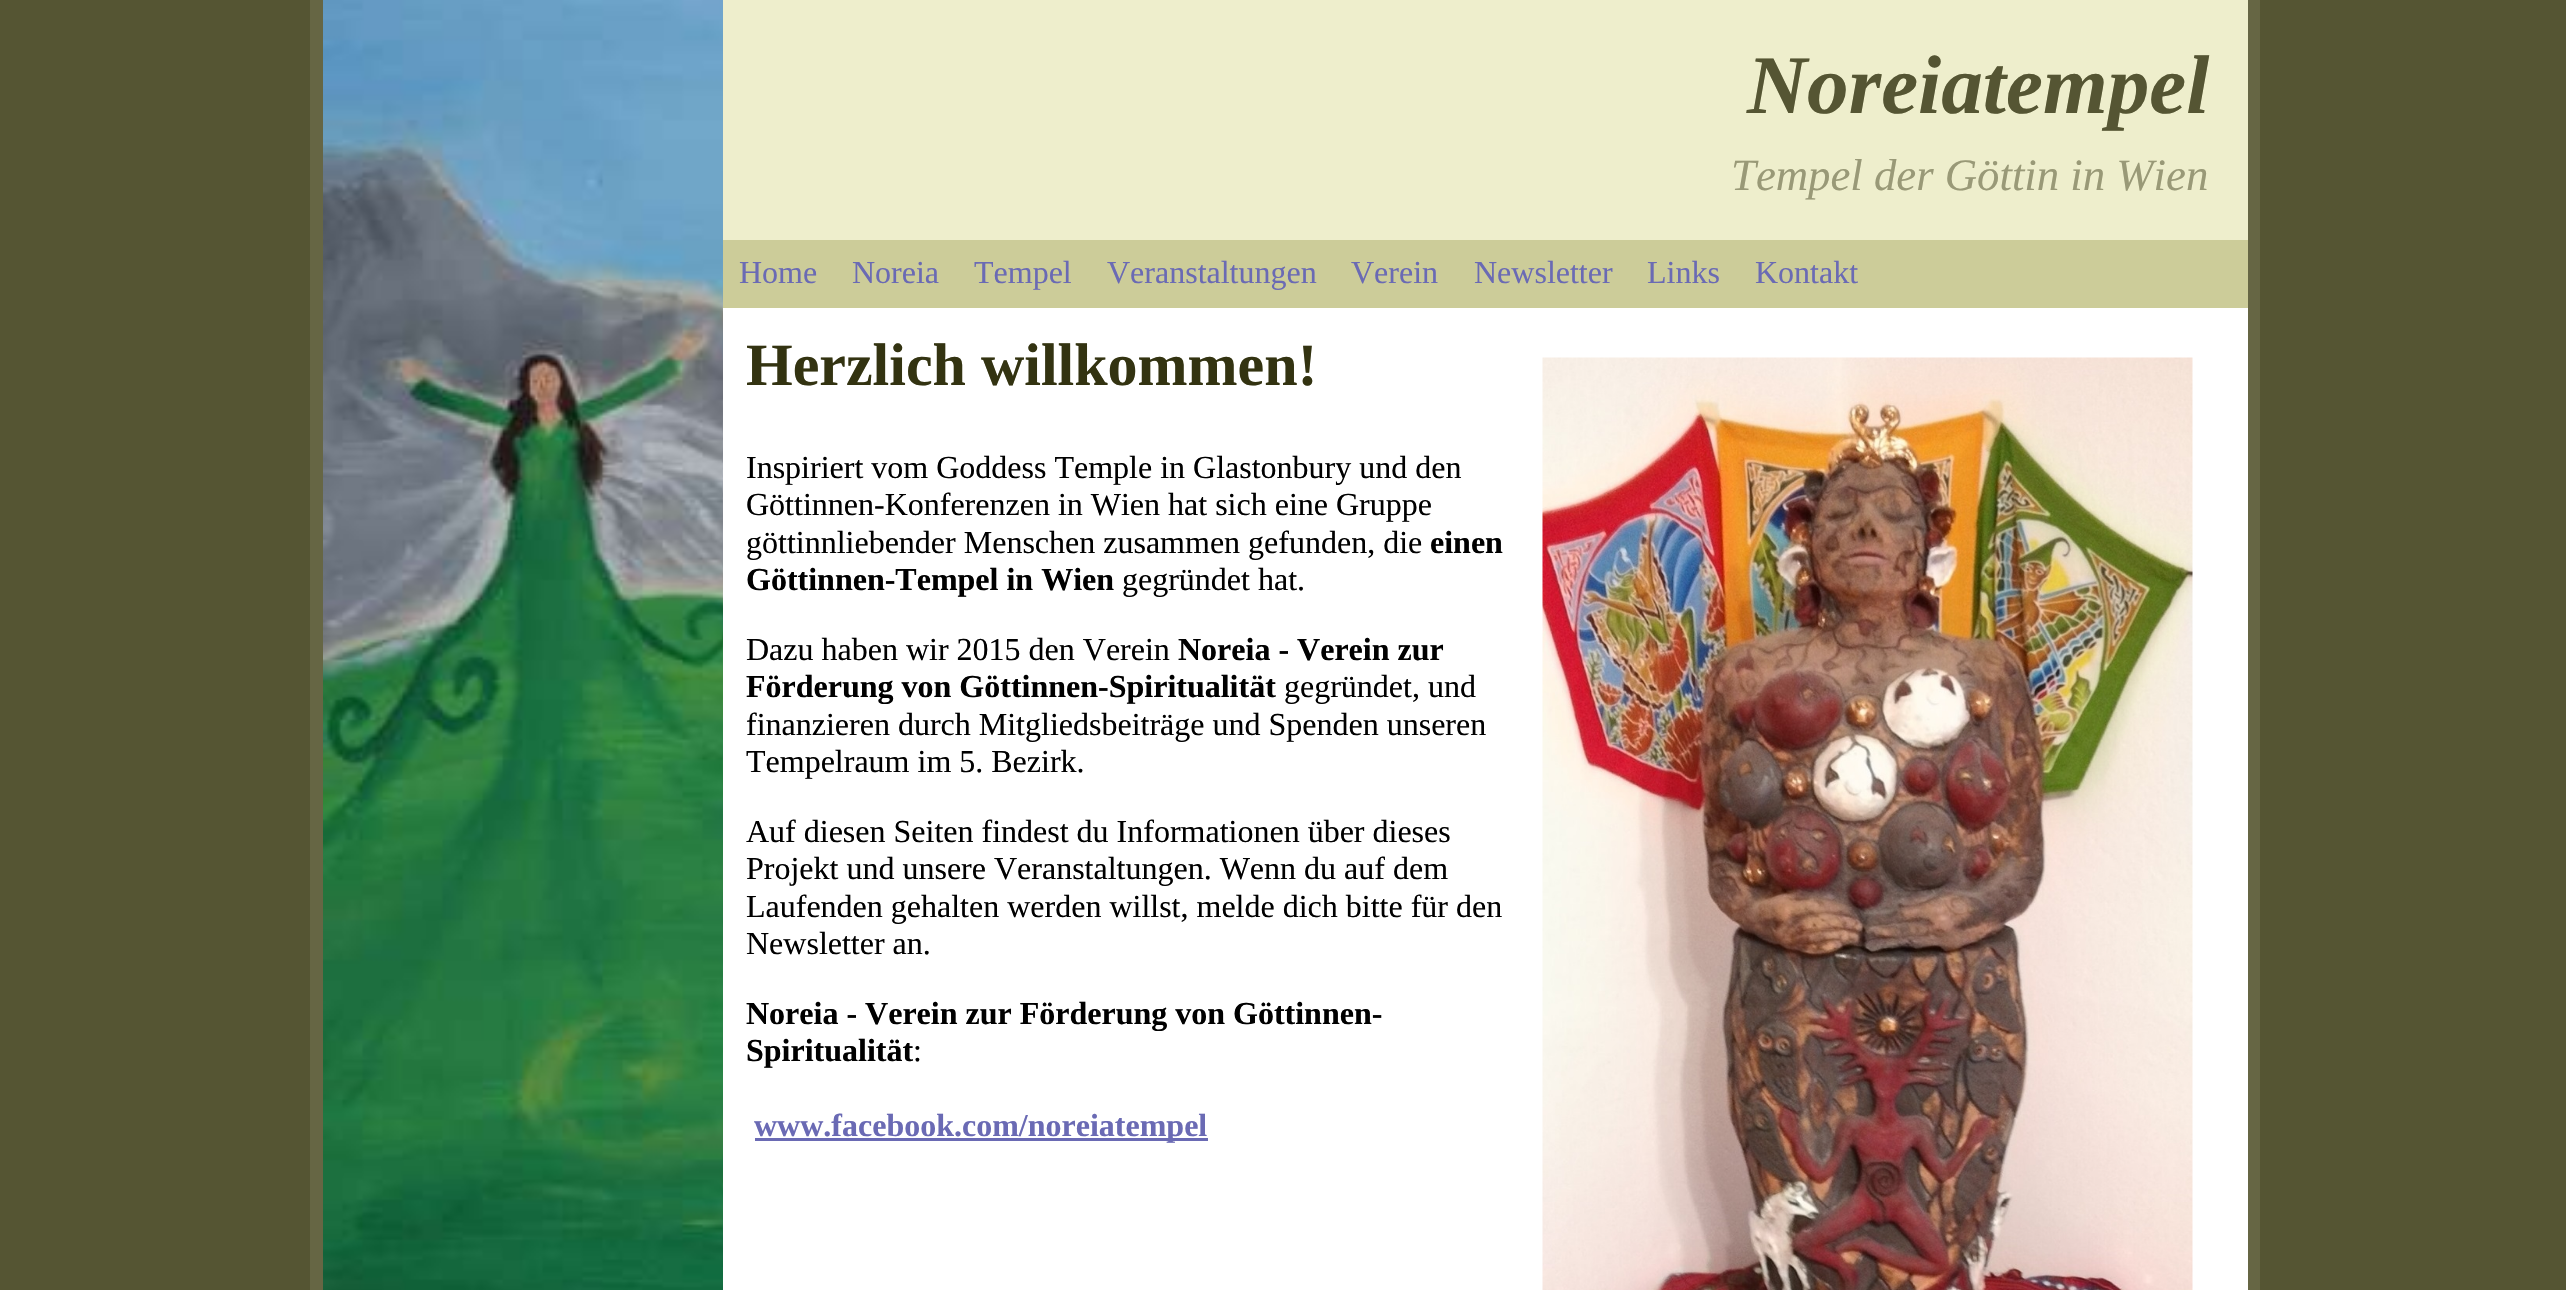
#include "include/core/SkBlurTypes.h"
#include "include/core/SkCanvas.h"
#include "include/core/SkData.h"
#include "include/core/SkFont.h"
#include "include/core/SkFontMgr.h"
#include "include/core/SkImage.h"
#include "include/core/SkMaskFilter.h"
#include "include/core/SkPaint.h"
#include "include/core/SkPathBuilder.h"
#include "include/core/SkTextBlob.h"
#include "include/effects/SkDashPathEffect.h"
#include "include/effects/SkGradientShader.h"
#include "include/utils/SkParsePath.h"

extern sk_sp<SkFontMgr> fontMgr;

void draw(SkCanvas* canvas) {
    SkPaint p;
    p.setAntiAlias(true);
    auto font = [&](const char* family, int weight, float size, bool italic = false) {
        SkFontStyle style(weight, SkFontStyle::kNormal_Width,
            italic ? SkFontStyle::kItalic_Slant : SkFontStyle::kUpright_Slant);
        SkFont result(fontMgr->matchFamilyStyle(family, style), size);
        result.setSubpixel(true);
        return result;
    };
    auto drawPhoto = [&](const char* path, float l, float t, float r, float b) {
        auto image = SkImages::DeferredFromEncodedData(SkData::MakeFromFileName(path));
        canvas->drawImageRect(image, SkRect::MakeLTRB(l, t, r, b), SkSamplingOptions());
    };
    canvas->clear(0xFF555533);
    drawPhoto("media/1.png", 323, 0, 723, 1290);
    {
        const struct { float l, t, r, b; SkColor color; } items[] = {
            {2248, 0, 2260, 1290, 0xFF666644},
            {310, 0, 323, 1290, 0xFF666644},
            {723, 0, 2248, 240, 0xFFEEEECC},
        };
        for (auto [l, t, r, b, color] : items) {
            p.setColor(color);
            canvas->drawRect(SkRect::MakeLTRB(l, t, r, b), p);
        }
    }
    auto font1 = font("Liberation Serif", 700, 83.25f, true);
    p.setColor(0xFF555533);
    canvas->drawString("Noreiatempel", 1747, 113, font1, p);
    auto font2 = font("Liberation Serif", 400, 44.75f, true);
    p.setColor(0xFF999977);
    canvas->drawString("Tempel der Göttin in Wien", 1731, 190, font2, p);
    p.setColor(0xFFCCCC99);
    canvas->drawRect(SkRect::MakeLTRB(723, 240, 2248, 308), p);
    auto font3 = font("Liberation Serif", 400, 32);
    p.setColor(0xFF6A6AB4);
    {
        const struct { const char* s; float x, y; } items[] = {
            {"Home", 739, 283},
            {"Noreia", 852, 283},
            {"Tempel", 974, 283},
            {"Veranstaltungen", 1107, 283},
            {"Verein", 1351, 283},
            {"Newsletter", 1474, 283},
            {"Links", 1647, 283},
            {"Kontakt", 1755, 283},
        };
        for (auto [s, x, y] : items) {
            canvas->drawString(s, x, y, font3, p);
        }
    }
    p.setColor(0xFFFFFFFF);
    canvas->drawRect(SkRect::MakeLTRB(723, 308, 2248, 1290), p);
    auto font4 = font("Liberation Serif", 700, 60);
    p.setColor(0xFF333311);
    canvas->drawString("Herzlich willkommen!", 746, 385, font4, p);
    drawPhoto("media/2.png", 1542, 357, 2193, 1290);
    p.setColor(0xFF000000);
    {
        const struct { const char* s; float x, y; } items[] = {
            {"Inspiriert vom Goddess Temple in Glastonbury und den", 746, 478},
            {"Göttinnen-Konferenzen in Wien hat sich eine Gruppe", 746, 515},
            {"göttinnliebender Menschen zusammen gefunden, die", 746, 553},
        };
        for (auto [s, x, y] : items) {
            canvas->drawString(s, x, y, font3, p);
        }
    }
    auto font5 = font("Liberation Serif", 700, 32);
    canvas->drawString("einen", 1430, 553, font5, p);
    canvas->drawString("Göttinnen-Tempel in Wien", 746, 590, font5, p);
    canvas->drawString("gegründet hat.", 1122, 590, font3, p);
    canvas->drawString("Dazu haben wir 2015 den Verein", 746, 660, font3, p);
    canvas->drawString("Noreia - Verein zur", 1178, 660, font5, p);
    canvas->drawString("Förderung von Göttinnen-Spiritualität", 746, 697, font5, p);
    {
        const struct { const char* s; float x, y; } items[] = {
            {"gegründet, und", 1284, 697},
            {"finanzieren durch Mitgliedsbeiträge und Spenden unseren", 746, 735},
            {"Tempelraum im 5. Bezirk.", 746, 772},
            {"Auf diesen Seiten findest du Informationen über dieses", 746, 842},
            {"Projekt und unsere Veranstaltungen. Wenn du auf dem", 746, 879},
            {"Laufenden gehalten werden willst, melde dich bitte für den", 746, 917},
            {"Newsletter an.", 746, 954},
        };
        for (auto [s, x, y] : items) {
            canvas->drawString(s, x, y, font3, p);
        }
    }
    canvas->drawString("Noreia - Verein zur Förderung von Göttinnen-", 746, 1024, font5, p);
    canvas->drawString("Spiritualität", 746, 1061, font5, p);
    canvas->drawString(":", 913, 1061, font3, p);
    p.setColor(0xFF6A6AB4);
    canvas->drawRect(SkRect::MakeLTRB(755, 1138, 1208, 1141), p);
    canvas->drawString("www.facebook.com/noreiatempel", 754, 1136, font5, p);
}
